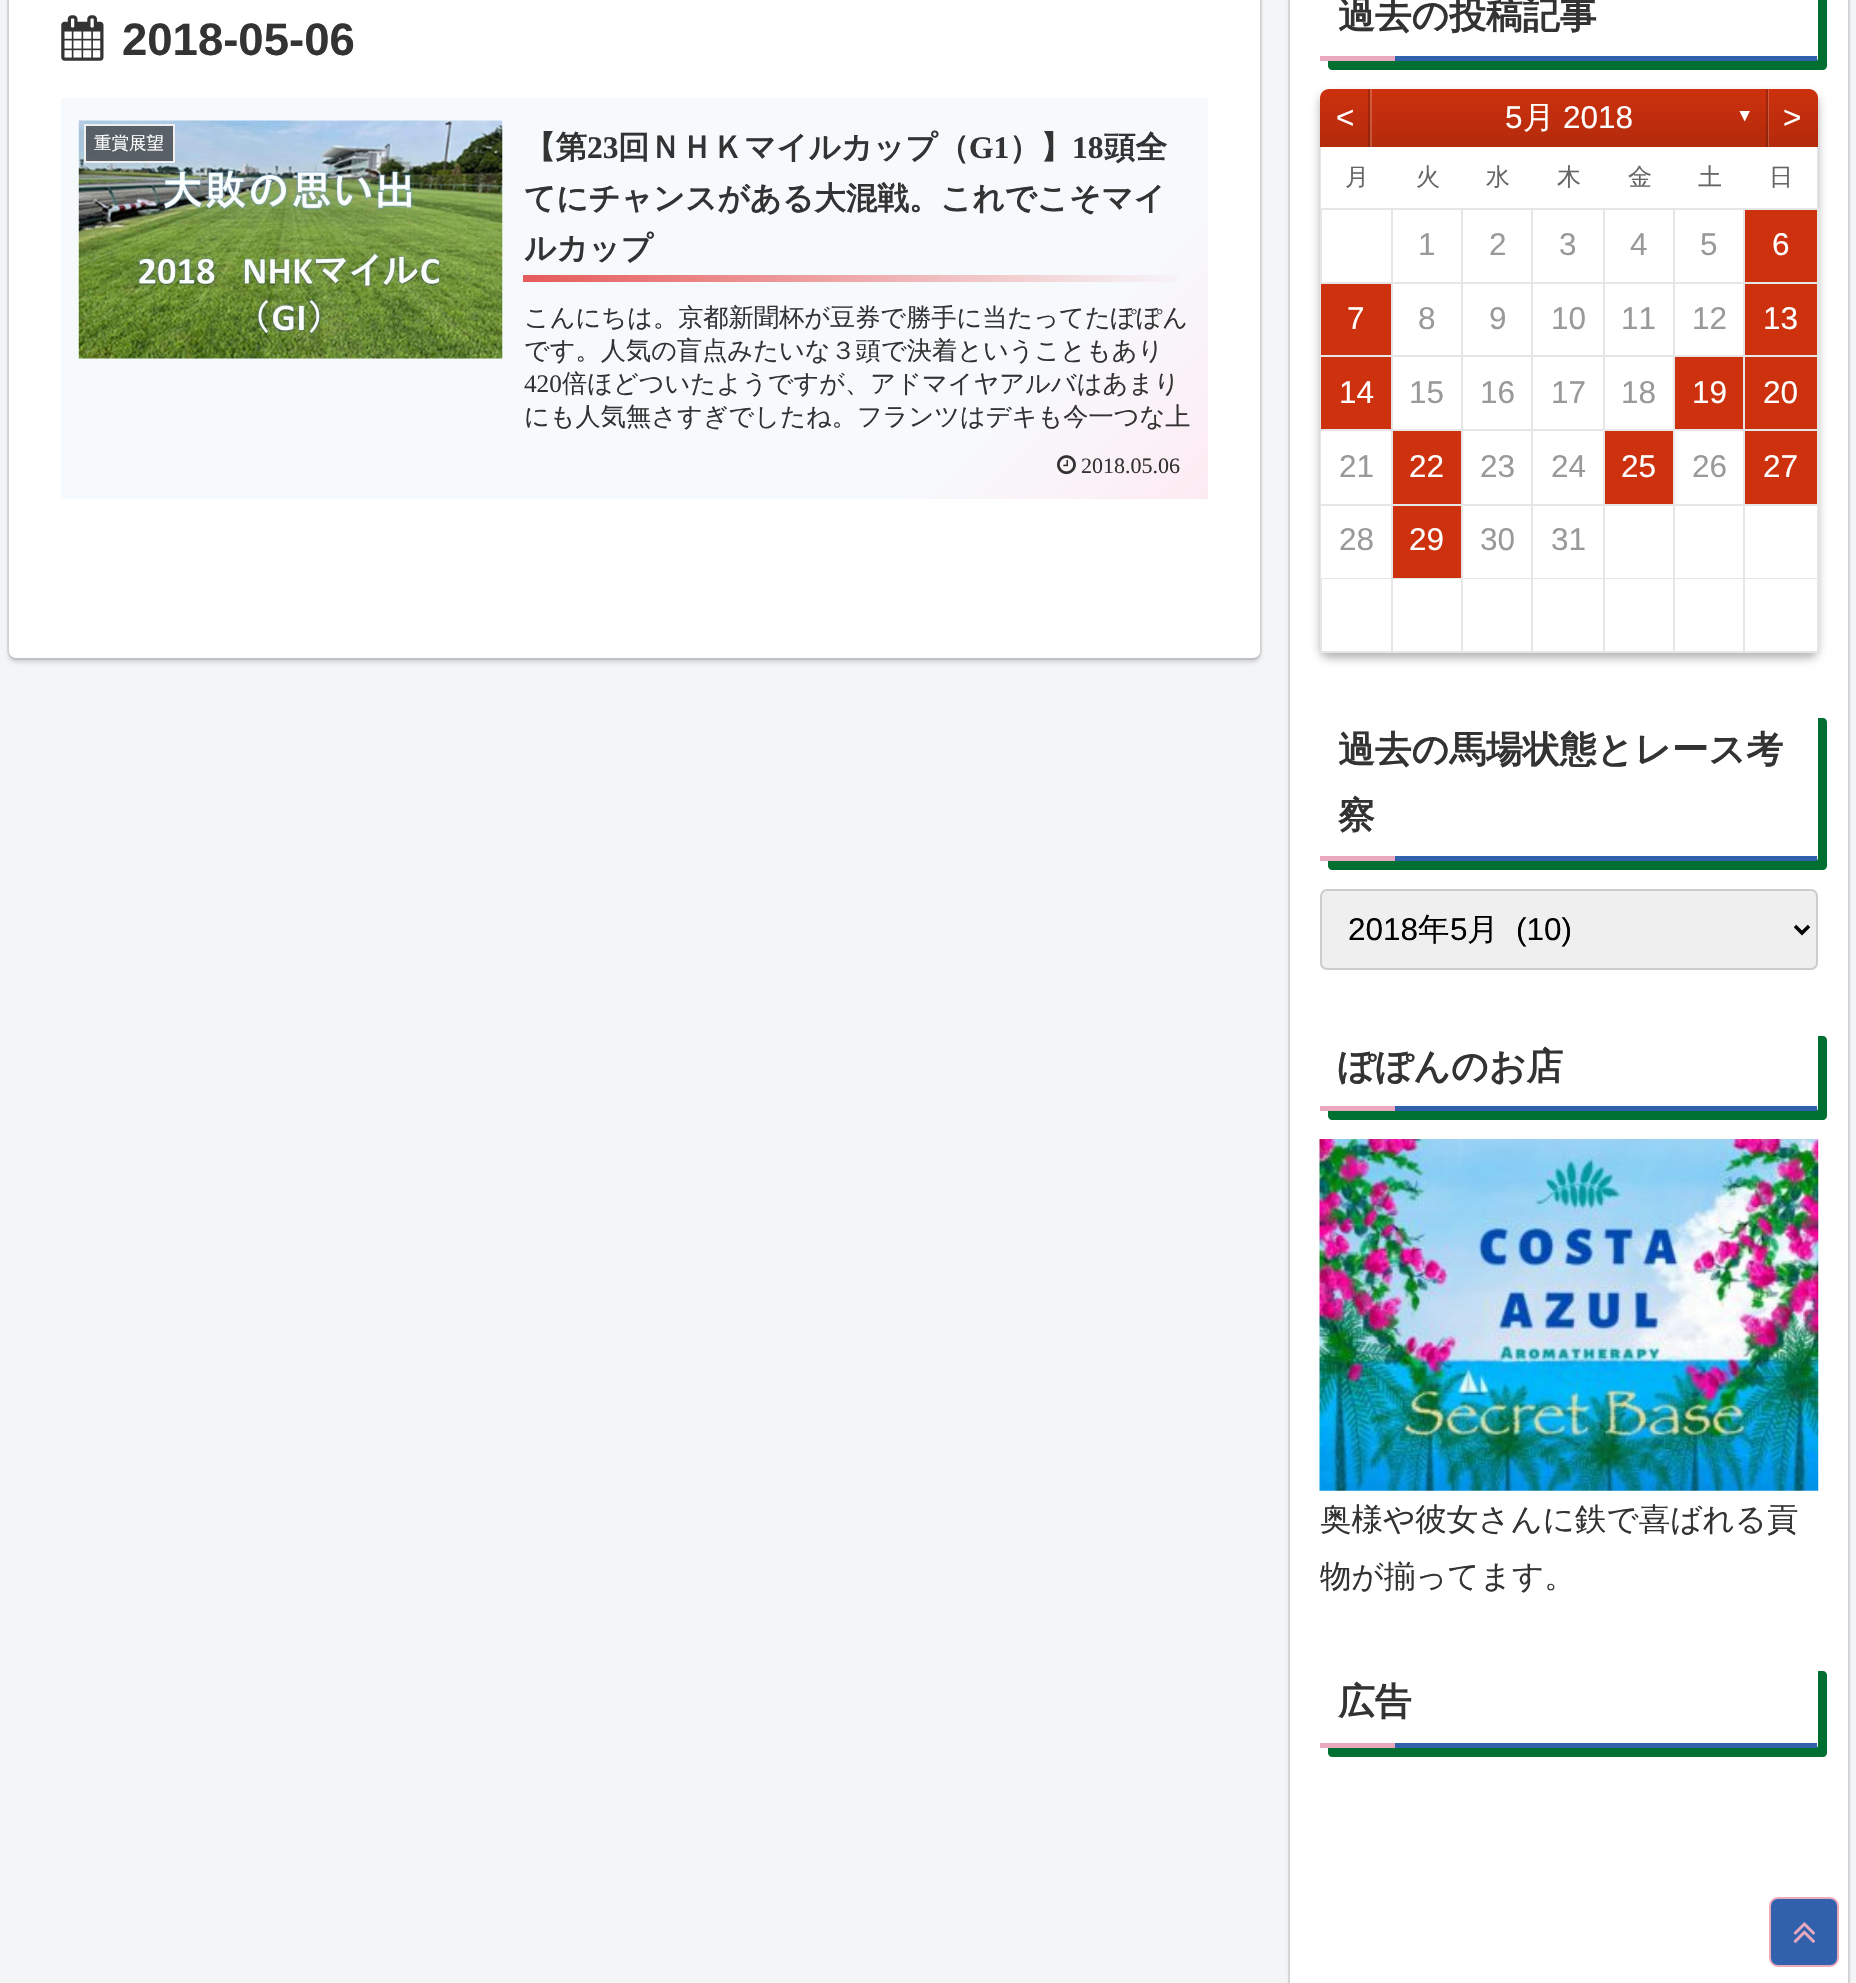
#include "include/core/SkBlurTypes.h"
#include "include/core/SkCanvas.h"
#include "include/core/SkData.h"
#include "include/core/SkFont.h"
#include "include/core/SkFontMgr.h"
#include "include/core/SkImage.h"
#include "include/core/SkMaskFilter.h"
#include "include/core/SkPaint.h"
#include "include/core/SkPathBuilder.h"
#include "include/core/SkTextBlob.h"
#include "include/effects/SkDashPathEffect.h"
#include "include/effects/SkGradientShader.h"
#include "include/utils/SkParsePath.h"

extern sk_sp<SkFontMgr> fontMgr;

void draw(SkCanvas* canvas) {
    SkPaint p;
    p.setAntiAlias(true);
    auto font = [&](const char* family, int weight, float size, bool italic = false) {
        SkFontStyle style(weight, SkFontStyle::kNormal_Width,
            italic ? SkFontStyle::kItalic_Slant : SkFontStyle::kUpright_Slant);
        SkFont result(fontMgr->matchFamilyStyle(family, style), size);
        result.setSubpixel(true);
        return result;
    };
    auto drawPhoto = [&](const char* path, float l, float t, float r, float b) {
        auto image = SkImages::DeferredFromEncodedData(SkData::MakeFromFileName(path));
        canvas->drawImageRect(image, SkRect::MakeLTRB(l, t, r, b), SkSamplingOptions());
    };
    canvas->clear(0xFFF4F5F7);
    p.setStyle(SkPaint::kStroke_Style);
    p.setStrokeWidth(2);
    p.setColor(0xFFE0E1E3);
    canvas->drawRoundRect(SkRect::MakeLTRB(8, -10, 1261, 659), 8, 8, p);
    p.setStyle(SkPaint::kFill_Style);
    p.setColor(0x29000000);
    p.setMaskFilter(SkMaskFilter::MakeBlur(kNormal_SkBlurStyle, 2));
    canvas->drawRoundRect(SkRect::MakeLTRB(9, -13, 1260, 662), 7, 7, p);
    p.setMaskFilter(nullptr);
    p.setColor(0xFFFFFFFF);
    canvas->drawRoundRect(SkRect::MakeLTRB(9, -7, 1260, 658), 7, 7, p);
    drawPhoto("media/1.png", 61, 15, 104, 61);
    auto font1 = font("Liberation Sans", 700, 45.5f);
    p.setColor(0xFF333333);
    canvas->drawString("2018-05-06", 122, 55, font1, p);
    {
        const SkColor colors[] = {0xFFF7FAFD, 0xFFF7FAFD, 0xFFFDEBF2};
        const float stops[] = {0, 0.8f, 1};
        const SkPoint ends[] = {{248, -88}, {1021, 685}};
        p.setShader(SkGradientShader::MakeLinear(ends, colors, stops, 3, SkTileMode::kClamp));
        p.setAlpha(255);
    }
    canvas->drawRect(SkRect::MakeLTRB(61, 98, 1208, 499), p);
    drawPhoto("media/2.png", 78, 120, 503, 359);
    p.setShader(nullptr);
    p.setColor(0xB3333333);
    canvas->drawRect(SkRect::MakeLTRB(85, 125, 174, 162), p);
    p.setStyle(SkPaint::kStroke_Style);
    p.setColor(0xFFEEEEEE);
    canvas->drawRect(SkRect::MakeLTRB(85, 125, 174, 162), p);
    auto font2 = font("WenQuanYi Zen Hei", 500, 17.5f);
    p.setStyle(SkPaint::kFill_Style);
    p.setColor(0xFFFFFFFF);
    canvas->drawString("重賞展望", 94, 149, font2, p);
    auto font3 = font("WenQuanYi Zen Hei", 700, 31.5f);
    p.setColor(0xFF333333);
    canvas->drawString("【第", 524, 158, font3, p);
    auto font4 = font("Liberation Serif", 700, 31.5f);
    canvas->drawString("23", 587, 158, font4, p);
    canvas->drawString("回ＮＨＫマイルカップ（", 618, 158, font3, p);
    canvas->drawString("G1", 969, 158, font4, p);
    canvas->drawString("）】", 1009, 158, font3, p);
    canvas->drawString("18", 1072, 158, font4, p);
    {
        const struct { const char* s; float x, y; } items[] = {
            {"頭全", 1104, 158},
            {"てにチャンスがある大混戦。これでこそマイ", 524, 209},
            {"ルカップ", 524, 259},
        };
        for (auto [s, x, y] : items) {
            canvas->drawString(s, x, y, font3, p);
        }
    }
    {
        const SkColor colors[] = {0xFFE65A5A, 0x00E65A5A};
        const float stops[] = {0, 1};
        const SkPoint ends[] = {{523, 278}, {1192, 278}};
        p.setShader(SkGradientShader::MakeLinear(ends, colors, stops, 2, SkTileMode::kClamp));
        p.setAlpha(255);
    }
    canvas->drawRect(SkRect::MakeLTRB(523, 275, 1178, 282), p);
    auto font5 = font("WenQuanYi Zen Hei", 500, 25.2f);
    p.setShader(nullptr);
    p.setColor(0xFF333333);
    canvas->drawString("こんにちは。京都新聞杯が豆券で勝手に当たってたぽぽん", 524, 326, font5, p);
    canvas->drawString("です。人気の盲点みたいな３頭で決着ということもあり", 524, 359, font5, p);
    auto font6 = font("Liberation Serif", 400, 25.2f);
    canvas->drawString("420", 524, 392, font6, p);
    canvas->drawString("倍ほどついたようですが、アドマイヤアルバはあまり", 562, 392, font5, p);
    canvas->drawString("にも人気無さすぎでしたね。フランツはデキも今一つな上", 524, 425, font5, p);
    drawPhoto("media/3.png", 1057, 455, 1076, 475);
    auto font7 = font("Liberation Serif", 400, 22);
    canvas->drawString("2018.05.06", 1081, 473, font7, p);
    p.setStyle(SkPaint::kStroke_Style);
    p.setColor(0xFFE0E1E3);
    canvas->drawRect(SkRect::MakeLTRB(1289, -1, 1849, 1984), p);
    p.setStyle(SkPaint::kFill_Style);
    p.setColor(0x29000000);
    p.setMaskFilter(SkMaskFilter::MakeBlur(kNormal_SkBlurStyle, 2));
    canvas->drawRoundRect(SkRect::MakeLTRB(1290, -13, 1848, 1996), 7, 7, p);
    p.setMaskFilter(nullptr);
    p.setColor(0xFFFFFFFF);
    canvas->drawRect(SkRect::MakeLTRB(1290, 0, 1848, 1983), p);
    p.setColor(0xFF007032);
    canvas->drawPath(SkPathBuilder().moveTo(1328, 61).lineTo(1328, 66).cubicTo(1328, 68, 1330, 70, 1332, 70).lineTo(1823, 70).cubicTo(1825, 70, 1827, 68, 1827, 66).lineTo(1827, -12).cubicTo(1827, -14, 1825, -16, 1823, -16).lineTo(1818, -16).lineTo(1818, 58).cubicTo(1818, 60, 1817, 61, 1815, 61).close().detach(), p);
    p.setColor(0xFF3261AB);
    canvas->drawRect(SkRect::MakeLTRB(1395, 56, 1817, 61), p);
    auto font8 = font("WenQuanYi Zen Hei", 700, 36.8f);
    p.setColor(0xFF333333);
    canvas->drawString("過去の投稿記事", 1338, 28, font8, p);
    p.setColor(0xFFEAA8BF);
    canvas->drawRect(SkRect::MakeLTRB(1320, 56, 1395, 61), p);
    canvas->save();
    canvas->clipPath(SkPathBuilder(SkPathFillType::kEvenOdd).moveTo(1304, 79).lineTo(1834, 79).lineTo(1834, 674).lineTo(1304, 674).close().moveTo(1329, 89).lineTo(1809, 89).cubicTo(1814, 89, 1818, 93, 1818, 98).lineTo(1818, 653).lineTo(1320, 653).lineTo(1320, 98).cubicTo(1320, 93, 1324, 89, 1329, 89).close().detach(), true);
    p.setColor(0x4D000000);
    p.setMaskFilter(SkMaskFilter::MakeBlur(kNormal_SkBlurStyle, 5));
    canvas->drawRoundRect(SkRect::MakeLTRB(1320, 95, 1818, 658), 9, 9, p);
    p.setMaskFilter(nullptr);
    canvas->restore();
    {
        const SkColor colors[] = {0xFFCD310D, 0xFFB32B0C};
        const float stops[] = {0, 1};
        const SkPoint ends[] = {{1569, 89}, {1569, 147}};
        p.setShader(SkGradientShader::MakeLinear(ends, colors, stops, 2, SkTileMode::kClamp));
        p.setAlpha(255);
    }
    canvas->drawPath(SkPathBuilder().moveTo(1329, 89).lineTo(1809, 89).cubicTo(1814, 89, 1818, 93, 1818, 98).lineTo(1818, 147).lineTo(1320, 147).lineTo(1320, 98).cubicTo(1320, 93, 1324, 89, 1329, 89).close().detach(), p);
    p.setShader(nullptr);
    p.setColor(0x33000000);
    canvas->drawRect(SkRect::MakeLTRB(1368, 89, 1370, 147), p);
    p.setColor(0x33FFFFFF);
    canvas->drawRect(SkRect::MakeLTRB(1370, 89, 1372, 147), p);
    auto font9 = font("Liberation Sans", 400, 31.5f);
    p.setColor(0xFFFFFFFF);
    canvas->drawString("<", 1336, 128, font9, p);
    canvas->drawString("5", 1505, 128, font9, p);
    auto font10 = font("WenQuanYi Zen Hei", 500, 31.5f);
    canvas->drawString("月", 1523, 128, font10, p);
    canvas->drawString("2018", 1563, 128, font9, p);
    auto font11 = font("Liberation Sans", 400, 17.5f);
    canvas->drawString("▼", 1736, 121, font11, p);
    p.setColor(0x33FFFFFF);
    canvas->drawRect(SkRect::MakeLTRB(1768, 89, 1769, 147), p);
    p.setColor(0x33000000);
    canvas->drawRect(SkRect::MakeLTRB(1766, 89, 1768, 147), p);
    p.setColor(0xFFFFFFFF);
    canvas->drawString(">", 1783, 128, font9, p);
    p.setColor(0xFFE6E6E6);
    canvas->drawRect(SkRect::MakeLTRB(1817, 147, 1818, 208), p);
    canvas->drawRect(SkRect::MakeLTRB(1320, 147, 1321, 208), p);
    auto font12 = font("WenQuanYi Zen Hei", 500, 24);
    p.setColor(0xFF666666);
    {
        const struct { const char* s; float x, y; } items[] = {
            {"月", 1345, 185},
            {"火", 1416, 185},
            {"水", 1486, 185},
            {"木", 1557, 185},
            {"金", 1628, 185},
            {"土", 1698, 185},
            {"日", 1769, 185},
        };
        for (auto [s, x, y] : items) {
            canvas->drawString(s, x, y, font12, p);
        }
    }
    {
        const struct { float l, t, r, b; SkColor color; } items[] = {
            {1320, 208, 1818, 210, 0xFFE6E6E6},
            {1817, 208, 1819, 653, 0xFFE6E6E6},
            {1320, 208, 1322, 653, 0xFFE6E6E6},
            {1391, 210, 1393, 653, 0xFFE6E6E6},
            {1321, 282, 1393, 284, 0xFFE6E6E6},
            {1461, 210, 1463, 653, 0xFFE6E6E6},
            {1393, 282, 1463, 284, 0xFFE6E6E6},
        };
        for (auto [l, t, r, b, color] : items) {
            p.setColor(color);
            canvas->drawRect(SkRect::MakeLTRB(l, t, r, b), p);
        }
    }
    p.setColor(0xFF999999);
    canvas->drawString("1", 1418, 255, font9, p);
    p.setColor(0xFFE6E6E6);
    canvas->drawRect(SkRect::MakeLTRB(1531, 210, 1533, 653), p);
    canvas->drawRect(SkRect::MakeLTRB(1463, 282, 1533, 284), p);
    p.setColor(0xFF999999);
    canvas->drawString("2", 1489, 255, font9, p);
    p.setColor(0xFFE6E6E6);
    canvas->drawRect(SkRect::MakeLTRB(1603, 210, 1605, 653), p);
    canvas->drawRect(SkRect::MakeLTRB(1533, 282, 1605, 284), p);
    p.setColor(0xFF999999);
    canvas->drawString("3", 1559, 255, font9, p);
    p.setColor(0xFFE6E6E6);
    canvas->drawRect(SkRect::MakeLTRB(1673, 210, 1675, 653), p);
    canvas->drawRect(SkRect::MakeLTRB(1605, 282, 1675, 284), p);
    p.setColor(0xFF999999);
    canvas->drawString("4", 1630, 255, font9, p);
    p.setColor(0xFFE6E6E6);
    canvas->drawRect(SkRect::MakeLTRB(1743, 210, 1745, 653), p);
    canvas->drawRect(SkRect::MakeLTRB(1675, 282, 1817, 284), p);
    p.setColor(0xFF999999);
    canvas->drawString("5", 1700, 255, font9, p);
    p.setColor(0xFFCD310D);
    canvas->drawRect(SkRect::MakeLTRB(1745, 210, 1817, 282), p);
    p.setColor(0xFFFFFFFF);
    canvas->drawString("6", 1772, 255, font9, p);
    p.setColor(0xFFCD310D);
    canvas->drawRect(SkRect::MakeLTRB(1321, 284, 1391, 355), p);
    p.setColor(0xFFE6E6E6);
    canvas->drawRect(SkRect::MakeLTRB(1321, 355, 1817, 357), p);
    p.setColor(0xFFFFFFFF);
    canvas->drawString("7", 1347, 329, font9, p);
    p.setColor(0xFF999999);
    {
        const struct { const char* s; float x, y; } items[] = {
            {"8", 1418, 329},
            {"9", 1489, 329},
            {"10", 1551, 329},
            {"11", 1621, 329},
            {"12", 1692, 329},
        };
        for (auto [s, x, y] : items) {
            canvas->drawString(s, x, y, font9, p);
        }
    }
    p.setColor(0xFFCD310D);
    canvas->drawRect(SkRect::MakeLTRB(1745, 284, 1817, 355), p);
    p.setColor(0xFFFFFFFF);
    canvas->drawString("13", 1763, 329, font9, p);
    p.setColor(0xFFCD310D);
    canvas->drawRect(SkRect::MakeLTRB(1321, 357, 1391, 429), p);
    p.setColor(0xFFE6E6E6);
    canvas->drawRect(SkRect::MakeLTRB(1321, 429, 1817, 431), p);
    p.setColor(0xFFFFFFFF);
    canvas->drawString("14", 1339, 403, font9, p);
    p.setColor(0xFF999999);
    {
        const struct { const char* s; float x, y; } items[] = {
            {"15", 1409, 403},
            {"16", 1480, 403},
            {"17", 1551, 403},
            {"18", 1621, 403},
        };
        for (auto [s, x, y] : items) {
            canvas->drawString(s, x, y, font9, p);
        }
    }
    p.setColor(0xFFCD310D);
    canvas->drawRect(SkRect::MakeLTRB(1675, 357, 1743, 429), p);
    p.setColor(0xFFFFFFFF);
    canvas->drawString("19", 1692, 403, font9, p);
    p.setColor(0xFFCD310D);
    canvas->drawRect(SkRect::MakeLTRB(1745, 357, 1817, 429), p);
    p.setColor(0xFFFFFFFF);
    canvas->drawString("20", 1763, 403, font9, p);
    canvas->drawRect(SkRect::MakeLTRB(1321, 431, 1322, 504), p);
    p.setColor(0xFFE6E6E6);
    canvas->drawRect(SkRect::MakeLTRB(1321, 504, 1817, 506), p);
    p.setColor(0xFF999999);
    canvas->drawString("21", 1339, 477, font9, p);
    p.setColor(0xFFCD310D);
    canvas->drawRect(SkRect::MakeLTRB(1393, 431, 1461, 504), p);
    p.setColor(0xFFFFFFFF);
    canvas->drawString("22", 1409, 477, font9, p);
    p.setColor(0xFF999999);
    canvas->drawString("23", 1480, 477, font9, p);
    canvas->drawString("24", 1551, 477, font9, p);
    p.setColor(0xFFCD310D);
    canvas->drawRect(SkRect::MakeLTRB(1605, 431, 1673, 504), p);
    p.setColor(0xFFFFFFFF);
    canvas->drawString("25", 1621, 477, font9, p);
    p.setColor(0xFF999999);
    canvas->drawString("26", 1692, 477, font9, p);
    p.setColor(0xFFCD310D);
    canvas->drawRect(SkRect::MakeLTRB(1745, 431, 1817, 504), p);
    p.setColor(0xFFFFFFFF);
    canvas->drawString("27", 1763, 477, font9, p);
    canvas->drawRect(SkRect::MakeLTRB(1321, 506, 1322, 578), p);
    p.setColor(0xFFE6E6E6);
    canvas->drawRect(SkRect::MakeLTRB(1321, 578, 1817, 579), p);
    p.setColor(0xFF999999);
    canvas->drawString("28", 1339, 550, font9, p);
    p.setColor(0xFFCD310D);
    canvas->drawRect(SkRect::MakeLTRB(1393, 506, 1461, 578), p);
    p.setColor(0xFFFFFFFF);
    canvas->drawString("29", 1409, 550, font9, p);
    p.setColor(0xFF999999);
    canvas->drawString("30", 1480, 550, font9, p);
    canvas->drawString("31", 1551, 550, font9, p);
    p.setColor(0xFFE6E6E6);
    canvas->drawRect(SkRect::MakeLTRB(1321, 651, 1817, 653), p);
    p.setColor(0xFF007032);
    canvas->drawPath(SkPathBuilder().moveTo(1328, 861).lineTo(1328, 866).cubicTo(1328, 868, 1330, 870, 1332, 870).lineTo(1823, 870).cubicTo(1825, 870, 1827, 868, 1827, 866).lineTo(1827, 722).cubicTo(1827, 720, 1825, 718, 1823, 718).lineTo(1818, 718).lineTo(1818, 858).cubicTo(1818, 859, 1817, 861, 1815, 861).close().detach(), p);
    p.setColor(0xFF3261AB);
    canvas->drawRect(SkRect::MakeLTRB(1395, 856, 1817, 861), p);
    p.setColor(0xFF333333);
    canvas->drawString("過去の馬場状態とレース考", 1338, 762, font8, p);
    canvas->drawString("察", 1338, 828, font8, p);
    p.setColor(0xFFEAA8BF);
    canvas->drawRect(SkRect::MakeLTRB(1320, 856, 1395, 861), p);
    p.setColor(0xFFEFEFEF);
    canvas->drawRoundRect(SkRect::MakeLTRB(1321, 890, 1817, 969), 6, 6, p);
    p.setStyle(SkPaint::kStroke_Style);
    p.setColor(0xFFCCCCCC);
    canvas->drawRoundRect(SkRect::MakeLTRB(1321, 890, 1817, 969), 6, 6, p);
    p.setStrokeWidth(3.5f);
    p.setColor(0xFF000000);
    canvas->drawPath(SkPathBuilder().moveTo(1795, 926).lineTo(1802, 933).lineTo(1809, 926).detach(), p);
    p.setStyle(SkPaint::kFill_Style);
    canvas->drawString("2018", 1348, 940, font9, p);
    canvas->drawString("年", 1418, 940, font10, p);
    canvas->drawString("5", 1450, 940, font9, p);
    canvas->drawString("月", 1467, 940, font10, p);
    canvas->drawString("(10)", 1516, 940, font9, p);
    p.setColor(0xFF007032);
    canvas->drawPath(SkPathBuilder().moveTo(1328, 1111).lineTo(1328, 1116).cubicTo(1328, 1118, 1330, 1120, 1332, 1120).lineTo(1823, 1120).cubicTo(1825, 1120, 1827, 1118, 1827, 1116).lineTo(1827, 1040).cubicTo(1827, 1038, 1825, 1036, 1823, 1036).lineTo(1818, 1036).lineTo(1818, 1108).cubicTo(1818, 1110, 1817, 1111, 1815, 1111).close().detach(), p);
    p.setColor(0xFF3261AB);
    canvas->drawRect(SkRect::MakeLTRB(1395, 1106, 1817, 1111), p);
    p.setColor(0xFF333333);
    canvas->drawString("ぽぽんのお店", 1338, 1079, font8, p);
    p.setColor(0xFFEAA8BF);
    canvas->drawRect(SkRect::MakeLTRB(1320, 1106, 1395, 1111), p);
    drawPhoto("media/4.png", 1319, 1139, 1819, 1491);
    p.setColor(0xFF333333);
    canvas->drawString("奥様や彼女さんに鉄で喜ばれる貢", 1320, 1530, font10, p);
    canvas->drawString("物が揃ってます。", 1320, 1587, font10, p);
    p.setColor(0xFF007032);
    canvas->drawPath(SkPathBuilder().moveTo(1328, 1748).lineTo(1328, 1753).cubicTo(1328, 1755, 1330, 1757, 1332, 1757).lineTo(1823, 1757).cubicTo(1825, 1757, 1827, 1755, 1827, 1753).lineTo(1827, 1675).cubicTo(1827, 1673, 1825, 1671, 1823, 1671).lineTo(1818, 1671).lineTo(1818, 1745).cubicTo(1818, 1747, 1817, 1748, 1815, 1748).close().detach(), p);
    p.setColor(0xFF3261AB);
    canvas->drawRect(SkRect::MakeLTRB(1395, 1743, 1817, 1748), p);
    p.setColor(0xFF333333);
    canvas->drawString("広告", 1338, 1714, font8, p);
    p.setColor(0xFFEAA8BF);
    canvas->drawRect(SkRect::MakeLTRB(1320, 1743, 1395, 1748), p);
    p.setColor(0xFF3261AB);
    canvas->drawRoundRect(SkRect::MakeLTRB(1770, 1898, 1838, 1966), 8, 8, p);
    p.setStyle(SkPaint::kStroke_Style);
    p.setStrokeWidth(2);
    p.setColor(0xFFEAA8BF);
    canvas->drawRoundRect(SkRect::MakeLTRB(1770, 1898, 1838, 1966), 8, 8, p);
    drawPhoto("media/5.png", 1793, 1922, 1815, 1943);
}
